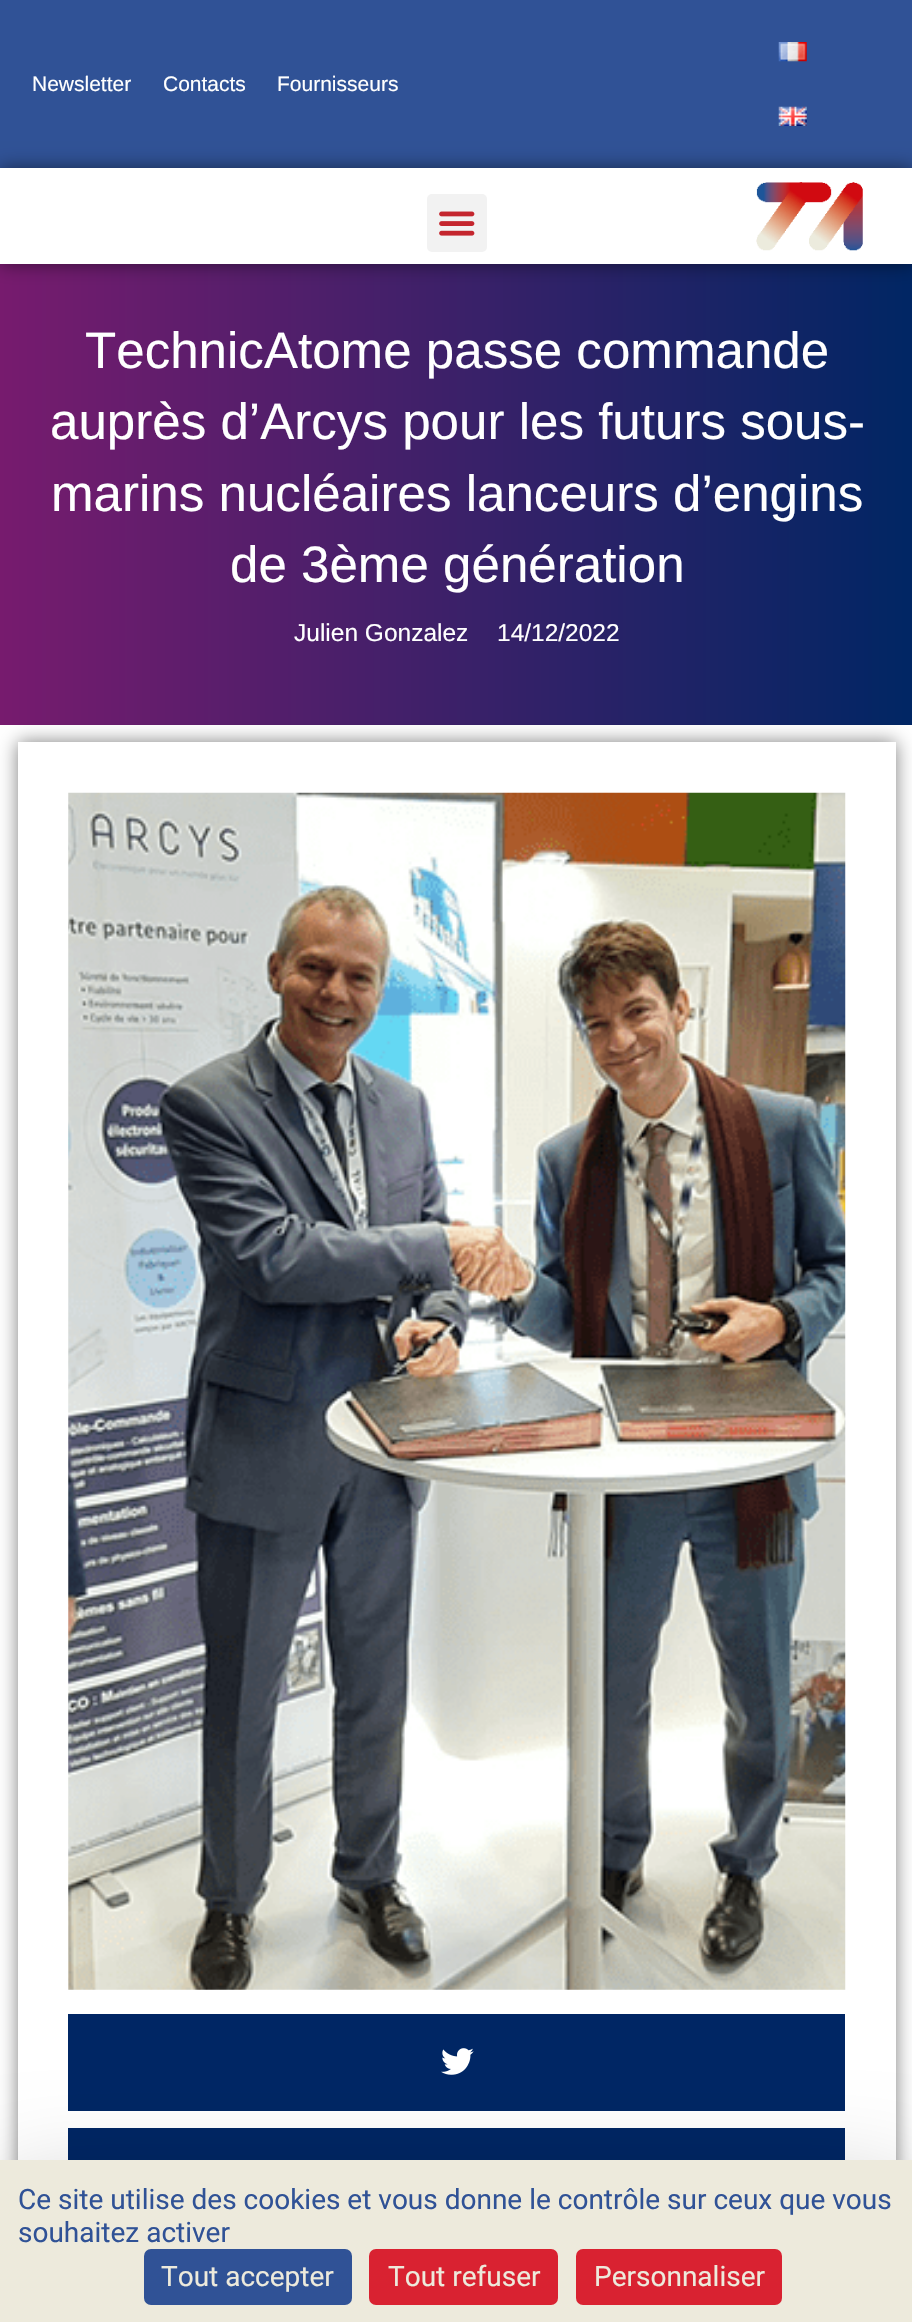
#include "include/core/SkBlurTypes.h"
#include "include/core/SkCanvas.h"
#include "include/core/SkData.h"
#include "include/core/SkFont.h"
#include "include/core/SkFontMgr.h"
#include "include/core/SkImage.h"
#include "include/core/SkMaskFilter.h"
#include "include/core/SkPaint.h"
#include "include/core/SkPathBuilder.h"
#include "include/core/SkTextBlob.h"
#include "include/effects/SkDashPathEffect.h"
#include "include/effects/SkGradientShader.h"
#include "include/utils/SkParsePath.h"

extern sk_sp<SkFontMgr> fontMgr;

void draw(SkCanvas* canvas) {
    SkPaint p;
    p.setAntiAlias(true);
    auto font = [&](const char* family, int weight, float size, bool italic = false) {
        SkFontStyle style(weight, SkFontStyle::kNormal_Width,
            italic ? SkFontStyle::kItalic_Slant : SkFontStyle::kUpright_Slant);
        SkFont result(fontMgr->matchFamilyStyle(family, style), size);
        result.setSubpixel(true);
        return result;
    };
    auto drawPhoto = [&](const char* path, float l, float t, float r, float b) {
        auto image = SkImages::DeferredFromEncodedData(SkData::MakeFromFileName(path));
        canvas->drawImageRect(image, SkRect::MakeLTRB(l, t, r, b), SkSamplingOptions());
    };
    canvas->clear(0xFFFFFFFF);
    p.setColor(0xFF305296);
    canvas->drawRect(SkRect::MakeLTRB(0, 0, 912, 168), p);
    auto font1 = font("Liberation Sans", 400, 21);
    p.setColor(0xFFFFFFFF);
    {
        const struct { const char* s; float x, y; } items[] = {
            {"Newsletter", 32, 91},
            {"Contacts", 163, 91},
            {"Fournisseurs", 277, 91},
        };
        for (auto [s, x, y] : items) {
            canvas->drawString(s, x, y, font1, p);
        }
    }
    drawPhoto("media/1.png", 778, 42, 807, 62);
    drawPhoto("media/2.png", 778, 106, 807, 126);
    {
        const SkColor colors[] = {0xFF771B6E, 0xFF002664};
        const float stops[] = {0, 1};
        const SkPoint ends[] = {{0, 494}, {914, 494}};
        p.setShader(SkGradientShader::MakeLinear(ends, colors, stops, 2, SkTileMode::kClamp));
        p.setAlpha(255);
    }
    canvas->drawRect(SkRect::MakeLTRB(0, 264, 912, 725), p);
    canvas->save();
    canvas->clipPath(SkPathBuilder(SkPathFillType::kEvenOdd).moveTo(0, 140).lineTo(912, 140).lineTo(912, 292).lineTo(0, 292).close().moveTo(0, 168).lineTo(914, 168).lineTo(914, 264).lineTo(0, 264).close().detach(), true);
    p.setShader(nullptr);
    p.setColor(0x80000000);
    p.setMaskFilter(SkMaskFilter::MakeBlur(kNormal_SkBlurStyle, 9));
    canvas->drawRect(SkRect::MakeLTRB(0, 168, 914, 264), p);
    p.setMaskFilter(nullptr);
    canvas->restore();
    p.setColor(0xFFF2F2F2);
    canvas->drawRoundRect(SkRect::MakeLTRB(427, 194, 487, 252), 5, 5, p);
    drawPhoto("media/3.png", 439, 211, 475, 236);
    drawPhoto("media/4.png", 756, 182, 863, 251);
    auto font2 = font("Liberation Sans", 400, 51.1f);
    p.setColor(0xFFFFFFFF);
    {
        const struct { const char* s; float x, y; } items[] = {
            {"TechnicAtome passe commande", 85, 368},
            {"auprès d’Arcys pour les futurs sous-", 50, 439},
            {"marins nucléaires lanceurs d’engins", 51, 511},
            {"de 3ème génération", 230, 582},
        };
        for (auto [s, x, y] : items) {
            canvas->drawString(s, x, y, font2, p);
        }
    }
    auto font3 = font("Liberation Sans", 400, 24.5f);
    canvas->drawString("Julien Gonzalez", 294, 641, font3, p);
    canvas->drawString("14/12/2022", 497, 641, font3, p);
    canvas->save();
    canvas->clipPath(SkPathBuilder(SkPathFillType::kEvenOdd).moveTo(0, 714).lineTo(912, 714).lineTo(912, 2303).lineTo(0, 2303).close().moveTo(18, 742).lineTo(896, 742).lineTo(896, 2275).lineTo(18, 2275).close().detach(), true);
    p.setColor(0x80000000);
    p.setMaskFilter(SkMaskFilter::MakeBlur(kNormal_SkBlurStyle, 9));
    canvas->drawRect(SkRect::MakeLTRB(18, 742, 896, 2275), p);
    p.setMaskFilter(nullptr);
    canvas->restore();
    drawPhoto("media/5.png", 68, 792, 846, 1990);
    p.setColor(0xFF002664);
    canvas->drawRect(SkRect::MakeLTRB(68, 2014, 845, 2111), p);
    drawPhoto("media/6.png", 441, 2048, 474, 2075);
    canvas->drawRect(SkRect::MakeLTRB(68, 2128, 845, 2160), p);
    p.setColor(0x40000000);
    p.setMaskFilter(SkMaskFilter::MakeBlur(kNormal_SkBlurStyle, 52.5f));
    canvas->drawRect(SkRect::MakeLTRB(0, 2195, 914, 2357), p);
    p.setMaskFilter(nullptr);
    p.setColor(0xFFEDEADC);
    canvas->drawRect(SkRect::MakeLTRB(0, 2160, 912, 2322), p);
    auto font4 = font("Roboto", 400, 28);
    p.setColor(0xFF305296);
    canvas->drawString("Ce site utilise des cookies et vous donne le contrôle sur ceux que vous", 18, 2209, font4, p);
    canvas->drawString("souhaitez activer", 18, 2242, font4, p);
    canvas->drawRoundRect(SkRect::MakeLTRB(144, 2249, 352, 2305), 7, 7, p);
    p.setColor(0xFFEDEADC);
    canvas->drawString("Tout accepter", 161, 2286, font4, p);
    p.setColor(0xFFD92231);
    canvas->drawRoundRect(SkRect::MakeLTRB(369, 2249, 558, 2305), 7, 7, p);
    p.setColor(0xFFEDEADC);
    canvas->drawString("Tout refuser", 388, 2286, font4, p);
    p.setColor(0xFFD92231);
    canvas->drawRoundRect(SkRect::MakeLTRB(576, 2249, 782, 2305), 7, 7, p);
    p.setColor(0xFFEDEADC);
    canvas->drawString("Personnaliser", 594, 2286, font4, p);
}
